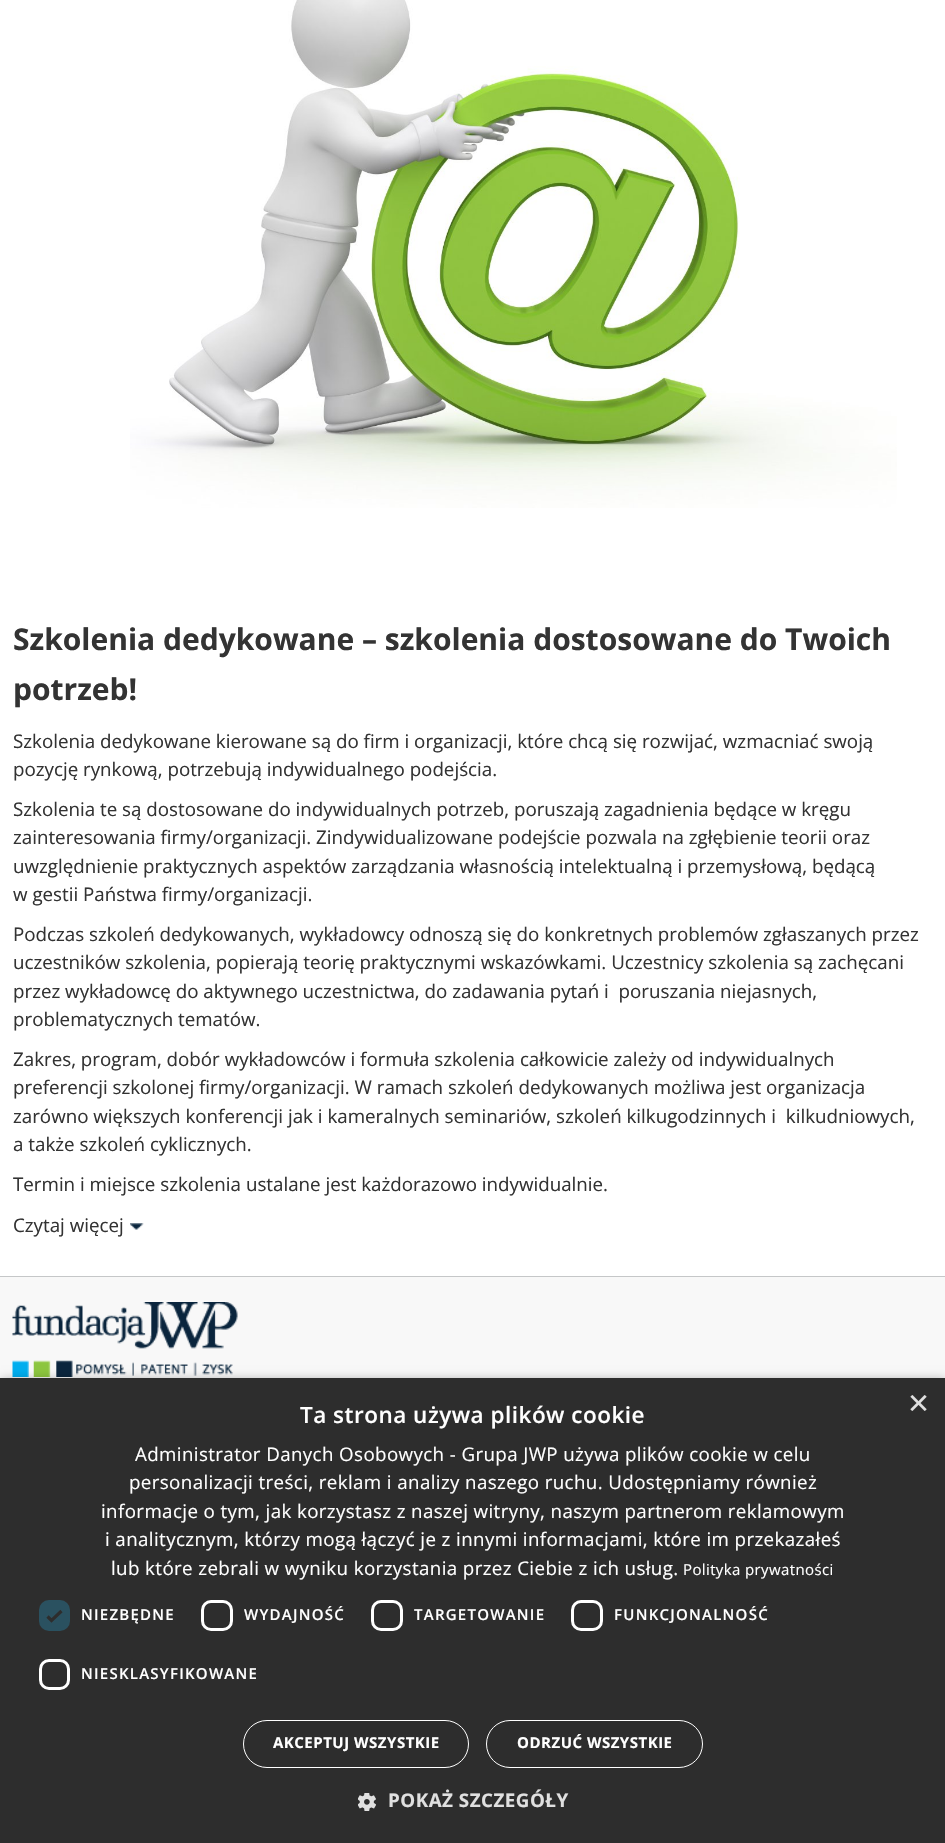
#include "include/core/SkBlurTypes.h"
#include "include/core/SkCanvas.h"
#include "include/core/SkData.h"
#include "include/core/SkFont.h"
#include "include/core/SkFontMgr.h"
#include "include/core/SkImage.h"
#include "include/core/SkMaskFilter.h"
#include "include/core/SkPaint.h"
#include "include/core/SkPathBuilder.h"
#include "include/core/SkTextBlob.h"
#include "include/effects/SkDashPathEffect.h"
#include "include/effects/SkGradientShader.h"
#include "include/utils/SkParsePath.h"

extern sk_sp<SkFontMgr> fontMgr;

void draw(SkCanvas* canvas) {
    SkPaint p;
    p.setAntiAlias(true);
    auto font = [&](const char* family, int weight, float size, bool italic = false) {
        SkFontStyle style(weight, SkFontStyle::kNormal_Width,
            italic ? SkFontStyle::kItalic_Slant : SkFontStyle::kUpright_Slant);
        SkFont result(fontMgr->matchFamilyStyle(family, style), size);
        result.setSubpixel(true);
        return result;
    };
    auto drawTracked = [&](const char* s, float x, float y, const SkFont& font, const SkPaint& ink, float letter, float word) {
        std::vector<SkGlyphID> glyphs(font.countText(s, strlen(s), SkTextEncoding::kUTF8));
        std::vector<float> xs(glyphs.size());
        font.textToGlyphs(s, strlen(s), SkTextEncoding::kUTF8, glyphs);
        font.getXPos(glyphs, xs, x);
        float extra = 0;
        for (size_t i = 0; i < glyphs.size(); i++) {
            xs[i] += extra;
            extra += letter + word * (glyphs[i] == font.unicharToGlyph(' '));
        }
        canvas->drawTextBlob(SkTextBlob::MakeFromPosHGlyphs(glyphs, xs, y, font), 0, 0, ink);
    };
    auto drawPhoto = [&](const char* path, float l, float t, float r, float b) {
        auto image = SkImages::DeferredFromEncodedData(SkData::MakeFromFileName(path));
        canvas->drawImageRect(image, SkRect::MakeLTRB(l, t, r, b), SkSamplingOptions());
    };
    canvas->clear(0xFFFFFFFF);
    drawPhoto("media/1.png", 130, 0, 897, 508);
    auto font1 = font("Open Sans", 700, 30);
    p.setColor(0xFF333333);
    canvas->drawString("Szkolenia dedykowane – szkolenia dostosowane do Twoich", 13, 650, font1, p);
    canvas->drawString("potrzeb!", 13, 700, font1, p);
    auto font2 = font("Open Sans", 400, 18.75f);
    {
        const struct { const char* s; float x, y; } items[] = {
            {"Szkolenia dedykowane kierowane są do firm i organizacji, które chcą się rozwijać, wzmacniać swoją", 13, 748},
            {"pozycję rynkową, potrzebują indywidualnego podejścia.", 13, 776},
            {"Szkolenia te są dostosowane do indywidualnych potrzeb, poruszają zagadnienia będące w kręgu", 13, 816},
            {"zainteresowania firmy/organizacji. Zindywidualizowane podejście pozwala na zgłębienie teorii oraz", 13, 844},
            {"uwzględnienie praktycznych aspektów zarządzania własnością intelektualną i przemysłową, będącą", 13, 873},
            {"w gestii Państwa firmy/organizacji.", 13, 901},
            {"Podczas szkoleń dedykowanych, wykładowcy odnoszą się do konkretnych problemów zgłaszanych przez", 13, 941},
            {"uczestników szkolenia, popierają teorię praktycznymi wskazówkami. Uczestnicy szkolenia są zachęcani", 13, 969},
            {"przez wykładowcę do aktywnego uczestnictwa, do zadawania pytań i  poruszania niejasnych,", 13, 998},
            {"problematycznych tematów.", 13, 1026},
            {"Zakres, program, dobór wykładowców i formuła szkolenia całkowicie zależy od indywidualnych", 13, 1066},
            {"preferencji szkolonej firmy/organizacji. W ramach szkoleń dedykowanych możliwa jest organizacja", 13, 1094},
            {"zarówno większych konferencji jak i kameralnych seminariów, szkoleń kilkugodzinnych i  kilkudniowych,", 13, 1123},
            {"a także szkoleń cyklicznych.", 13, 1151},
            {"Termin i miejsce szkolenia ustalane jest każdorazowo indywidualnie.", 13, 1191},
            {"Czytaj więcej", 13, 1232},
        };
        for (auto [s, x, y] : items) {
            canvas->drawString(s, x, y, font2, p);
        }
    }
    drawPhoto("media/2.png", 130, 1223, 144, 1230);
    p.setColor(0xFFF8F8F8);
    canvas->drawRect(SkRect::MakeLTRB(0, 1277, 945, 1378), p);
    p.setColor(0xFFC5C7C8);
    canvas->drawRect(SkRect::MakeLTRB(0, 1276, 945, 1277), p);
    drawPhoto("media/3.png", 12, 1302, 238, 1377);
    p.setColor(0x59000000);
    p.setMaskFilter(SkMaskFilter::MakeBlur(kNormal_SkBlurStyle, 5));
    canvas->drawRect(SkRect::MakeLTRB(1, 1380, 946, 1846), p);
    p.setMaskFilter(nullptr);
    p.setColor(0xFF2D2D2D);
    canvas->drawRect(SkRect::MakeLTRB(0, 1378, 945, 1843), p);
    auto font3 = font("Liberation Sans", 400, 36);
    p.setColor(0xFFE0E0E0);
    canvas->drawString("×", 908, 1415, font3, p);
    auto font4 = font("Open Sans", 600, 22.5f);
    p.setColor(0xFFFFFFFF);
    drawTracked("Ta strona używa plików cookie", 300, 1423, font4, p, 0.5f, 0);
    {
        const struct { const char* s; float x, y; } items[] = {
            {"Administrator Danych Osobowych - Grupa JWP używa plików cookie w celu", 135, 1461},
            {"personalizacji treści, reklam i analizy naszego ruchu. Udostępniamy również", 129, 1489},
            {"informacje o tym, jak korzystasz z naszej witryny, naszym partnerom reklamowym", 101, 1518},
            {"i analitycznym, którzy mogą łączyć je z innymi informacjami, które im przekazałeś", 105, 1546},
            {"lub które zebrali w wyniku korzystania przez Ciebie z ich usług.", 111, 1575},
        };
        for (auto [s, x, y] : items) {
            drawTracked(s, x, y, font2, p, 0.38f, 0);
        }
    }
    auto font5 = font("Open Sans", 400, 15);
    drawTracked("Polityka prywatności", 683, 1575, font5, p, 0.38f, 0);
    p.setColor(0xFF2A5160);
    canvas->drawRoundRect(SkRect::MakeLTRB(39, 1600, 70, 1631), 10, 10, p);
    p.setStyle(SkPaint::kStroke_Style);
    p.setStrokeWidth(3.3f);
    p.setColor(0xFF2D2D2D);
    canvas->drawPath(SkPathBuilder().moveTo(47.5f, 1616.5f).lineTo(51.5f, 1620.5f).lineTo(61.5f, 1611).detach(), p);
    auto font6 = font("Open Sans", 600, 15);
    p.setStyle(SkPaint::kFill_Style);
    p.setColor(0xFFFFFFFF);
    drawTracked("NIEZBĘDNE", 81, 1620, font6, p, 1.25f, 0);
    p.setStyle(SkPaint::kStroke_Style);
    p.setStrokeWidth(3);
    canvas->drawRoundRect(SkRect::MakeLTRB(202.5f, 1601.5f, 231.5f, 1629.5f), 8.5f, 8.5f, p);
    p.setStyle(SkPaint::kFill_Style);
    drawTracked("WYDAJNOŚĆ", 244, 1620, font6, p, 1.25f, 0);
    p.setStyle(SkPaint::kStroke_Style);
    canvas->drawRoundRect(SkRect::MakeLTRB(372.5f, 1601.5f, 401.5f, 1629.5f), 8.5f, 8.5f, p);
    p.setStyle(SkPaint::kFill_Style);
    drawTracked("TARGETOWANIE", 414, 1620, font6, p, 1.25f, 0);
    p.setStyle(SkPaint::kStroke_Style);
    canvas->drawRoundRect(SkRect::MakeLTRB(572.5f, 1601.5f, 601.5f, 1629.5f), 8.5f, 8.5f, p);
    p.setStyle(SkPaint::kFill_Style);
    drawTracked("FUNKCJONALNOŚĆ", 614, 1620, font6, p, 1.25f, 0);
    p.setStyle(SkPaint::kStroke_Style);
    canvas->drawRoundRect(SkRect::MakeLTRB(40.5f, 1660.5f, 68.5f, 1688.5f), 8.5f, 8.5f, p);
    p.setStyle(SkPaint::kFill_Style);
    drawTracked("NIESKLASYFIKOWANE", 81, 1679, font6, p, 1.25f, 0);
    p.setStyle(SkPaint::kStroke_Style);
    p.setStrokeWidth(1);
    canvas->drawRoundRect(SkRect::MakeLTRB(243.5f, 1720.5f, 468.5f, 1767.5f), 23.5f, 23.5f, p);
    auto font7 = font("Open Sans", 700, 15);
    p.setStyle(SkPaint::kFill_Style);
    drawTracked("AKCEPTUJ WSZYSTKIE", 273, 1748, font7, p, 0.5f, 0);
    p.setStyle(SkPaint::kStroke_Style);
    canvas->drawRoundRect(SkRect::MakeLTRB(486.5f, 1720.5f, 702.5f, 1767.5f), 23.5f, 23.5f, p);
    p.setStyle(SkPaint::kFill_Style);
    drawTracked("ODRZUĆ WSZYSTKIE", 517, 1748, font7, p, 0.5f, 0);
    drawPhoto("media/4.png", 358, 1793, 376, 1811);
    auto font8 = font("Open Sans", 700, 18.75f);
    p.setColor(0xFFE0E0E0);
    drawTracked("POKAŻ SZCZEGÓŁY", 388, 1807, font8, p, 0.5f, 0);
}
